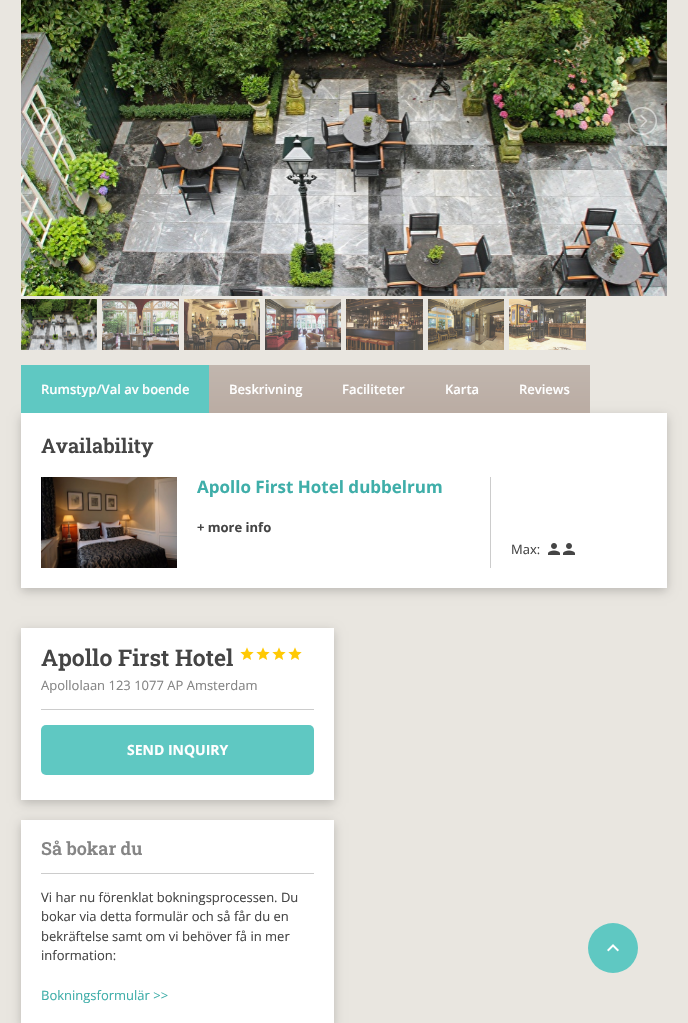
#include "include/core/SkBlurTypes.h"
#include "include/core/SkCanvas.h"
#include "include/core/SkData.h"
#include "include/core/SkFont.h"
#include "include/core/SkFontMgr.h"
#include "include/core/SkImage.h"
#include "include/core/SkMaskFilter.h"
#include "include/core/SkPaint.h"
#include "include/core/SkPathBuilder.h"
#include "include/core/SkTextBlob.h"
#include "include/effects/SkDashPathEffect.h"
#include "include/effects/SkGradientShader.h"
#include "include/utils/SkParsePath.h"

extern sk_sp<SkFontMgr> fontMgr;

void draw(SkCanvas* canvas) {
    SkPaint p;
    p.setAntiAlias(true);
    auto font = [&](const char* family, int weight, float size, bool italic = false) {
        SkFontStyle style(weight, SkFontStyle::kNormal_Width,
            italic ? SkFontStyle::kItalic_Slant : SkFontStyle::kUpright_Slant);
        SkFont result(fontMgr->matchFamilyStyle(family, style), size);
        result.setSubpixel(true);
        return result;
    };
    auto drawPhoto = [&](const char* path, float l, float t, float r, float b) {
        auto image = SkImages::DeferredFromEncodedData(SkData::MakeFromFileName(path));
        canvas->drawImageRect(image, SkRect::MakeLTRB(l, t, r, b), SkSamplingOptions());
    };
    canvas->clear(0xFFE9E6E0);
    drawPhoto("media/1.png", 21, 0, 667, 296);
    drawPhoto("media/2.png", 31, 107, 60, 135);
    drawPhoto("media/3.png", 628, 107, 657, 135);
    drawPhoto("media/4.png", 21, 299, 97, 350);
    drawPhoto("media/5.png", 102, 299, 179, 350);
    drawPhoto("media/6.png", 184, 299, 260, 350);
    drawPhoto("media/7.png", 265, 299, 341, 350);
    drawPhoto("media/8.png", 346, 299, 423, 350);
    drawPhoto("media/9.png", 428, 299, 504, 350);
    drawPhoto("media/10.png", 509, 299, 586, 350);
    p.setColor(0x33000000);
    p.setMaskFilter(SkMaskFilter::MakeBlur(kNormal_SkBlurStyle, 5));
    canvas->drawRect(SkRect::MakeLTRB(21, 416, 667, 591), p);
    p.setMaskFilter(nullptr);
    p.setColor(0xFF5FC8C2);
    canvas->drawRect(SkRect::MakeLTRB(21, 365, 209, 413), p);
    auto font1 = font("Open Sans", 600, 13);
    p.setColor(0xFFFFFFFF);
    canvas->drawString("Rumstyp/Val av boende", 41, 394, font1, p);
    {
        const SkColor colors[] = {0xFFC1B6AE, 0xFFBAACA3};
        const float stops[] = {0, 1};
        const SkPoint ends[] = {{266, 365}, {266, 413}};
        p.setShader(SkGradientShader::MakeLinear(ends, colors, stops, 2, SkTileMode::kClamp));
        p.setAlpha(255);
    }
    canvas->drawRect(SkRect::MakeLTRB(209, 365, 322, 413), p);
    p.setShader(nullptr);
    p.setColor(0xFFFFFFFF);
    canvas->drawString("Beskrivning", 229, 394, font1, p);
    {
        const SkColor colors[] = {0xFFC1B6AE, 0xFFBAACA3};
        const float stops[] = {0, 1};
        const SkPoint ends[] = {{374, 365}, {374, 413}};
        p.setShader(SkGradientShader::MakeLinear(ends, colors, stops, 2, SkTileMode::kClamp));
        p.setAlpha(255);
    }
    canvas->drawRect(SkRect::MakeLTRB(322, 365, 425, 413), p);
    p.setShader(nullptr);
    p.setColor(0xFFFFFFFF);
    canvas->drawString("Faciliteter", 342, 394, font1, p);
    {
        const SkColor colors[] = {0xFFC1B6AE, 0xFFBAACA3};
        const float stops[] = {0, 1};
        const SkPoint ends[] = {{462, 365}, {462, 413}};
        p.setShader(SkGradientShader::MakeLinear(ends, colors, stops, 2, SkTileMode::kClamp));
        p.setAlpha(255);
    }
    canvas->drawRect(SkRect::MakeLTRB(425, 365, 499, 413), p);
    p.setShader(nullptr);
    p.setColor(0xFFFFFFFF);
    canvas->drawString("Karta", 445, 394, font1, p);
    {
        const SkColor colors[] = {0xFFC1B6AE, 0xFFBAACA3};
        const float stops[] = {0, 1};
        const SkPoint ends[] = {{545, 365}, {545, 413}};
        p.setShader(SkGradientShader::MakeLinear(ends, colors, stops, 2, SkTileMode::kClamp));
        p.setAlpha(255);
    }
    canvas->drawRect(SkRect::MakeLTRB(499, 365, 590, 413), p);
    p.setShader(nullptr);
    p.setColor(0xFFFFFFFF);
    canvas->drawString("Reviews", 519, 394, font1, p);
    canvas->drawRect(SkRect::MakeLTRB(21, 413, 667, 588), p);
    auto font2 = font("Roboto Slab", 600, 20);
    p.setColor(0xFF454545);
    canvas->drawString("Availability", 41, 453, font2, p);
    drawPhoto("media/11.png", 41, 477, 177, 568);
    auto font3 = font("Open Sans", 700, 17);
    p.setColor(0xFF3FAEA9);
    canvas->drawString("Apollo First Hotel dubbelrum", 197, 493, font3, p);
    auto font4 = font("Open Sans", 700, 13);
    p.setColor(0xFF454545);
    canvas->drawString("+ more info", 197, 532, font4, p);
    p.setColor(0xFFCCCCCC);
    canvas->drawRect(SkRect::MakeLTRB(490, 477, 491, 568), p);
    auto font5 = font("Open Sans", 400, 13);
    p.setColor(0xFF454545);
    canvas->drawString("Max:", 511, 554, font5, p);
    drawPhoto("media/12.png", 548, 543, 560, 555);
    drawPhoto("media/12.png", 563, 543, 575, 555);
    p.setColor(0x33000000);
    p.setMaskFilter(SkMaskFilter::MakeBlur(kNormal_SkBlurStyle, 5));
    canvas->drawRect(SkRect::MakeLTRB(21, 631, 334, 803), p);
    p.setMaskFilter(nullptr);
    p.setColor(0xFFFFFFFF);
    canvas->drawRect(SkRect::MakeLTRB(21, 628, 334, 800), p);
    auto font6 = font("Roboto Slab", 600, 23);
    p.setColor(0xFF454545);
    canvas->drawString("Apollo First Hotel", 41, 666, font6, p);
    drawPhoto("media/13.png", 240, 647, 254, 660);
    drawPhoto("media/13.png", 256, 647, 270, 660);
    drawPhoto("media/13.png", 272, 647, 286, 660);
    drawPhoto("media/13.png", 288, 647, 302, 660);
    p.setColor(0xFFCCCCCC);
    canvas->drawRect(SkRect::MakeLTRB(41, 709, 314, 710), p);
    p.setColor(0xFF858585);
    canvas->drawString("Apollolaan 123 1077 AP Amsterdam", 41, 690, font5, p);
    p.setColor(0xFF5FC8C2);
    canvas->drawRoundRect(SkRect::MakeLTRB(41, 725, 314, 775), 5, 5, p);
    auto font7 = font("Open Sans", 700, 14);
    p.setColor(0xFFFFFFFF);
    canvas->drawString("SEND INQUIRY", 127, 755, font7, p);
    p.setColor(0x33000000);
    p.setMaskFilter(SkMaskFilter::MakeBlur(kNormal_SkBlurStyle, 5));
    canvas->drawRect(SkRect::MakeLTRB(21, 823, 334, 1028), p);
    p.setMaskFilter(nullptr);
    p.setColor(0xFFFFFFFF);
    canvas->drawRect(SkRect::MakeLTRB(21, 820, 334, 1023), p);
    p.setColor(0xFFCCCCCC);
    canvas->drawRect(SkRect::MakeLTRB(41, 873, 314, 874), p);
    auto font8 = font("Roboto Slab", 600, 18);
    p.setColor(0xFF858585);
    canvas->drawString("Så bokar du", 41, 855, font8, p);
    p.setColor(0xFF454545);
    {
        const struct { const char* s; float x, y; } items[] = {
            {"Vi har nu förenklat bokningsprocessen. Du", 41, 902},
            {"bokar via detta formulär och så får du en", 41, 921},
            {"bekräftelse samt om vi behöver få in mer", 41, 941},
            {"information:", 41, 960},
        };
        for (auto [s, x, y] : items) {
            canvas->drawString(s, x, y, font5, p);
        }
    }
    p.setColor(0xFF3FAEA9);
    canvas->drawString("Bokningsformulär >>", 41, 1000, font5, p);
    p.setColor(0xFF5FC8C2);
    canvas->drawCircle(613, 948, 25, p);
    drawPhoto("media/14.png", 607, 944, 619, 952);
}
